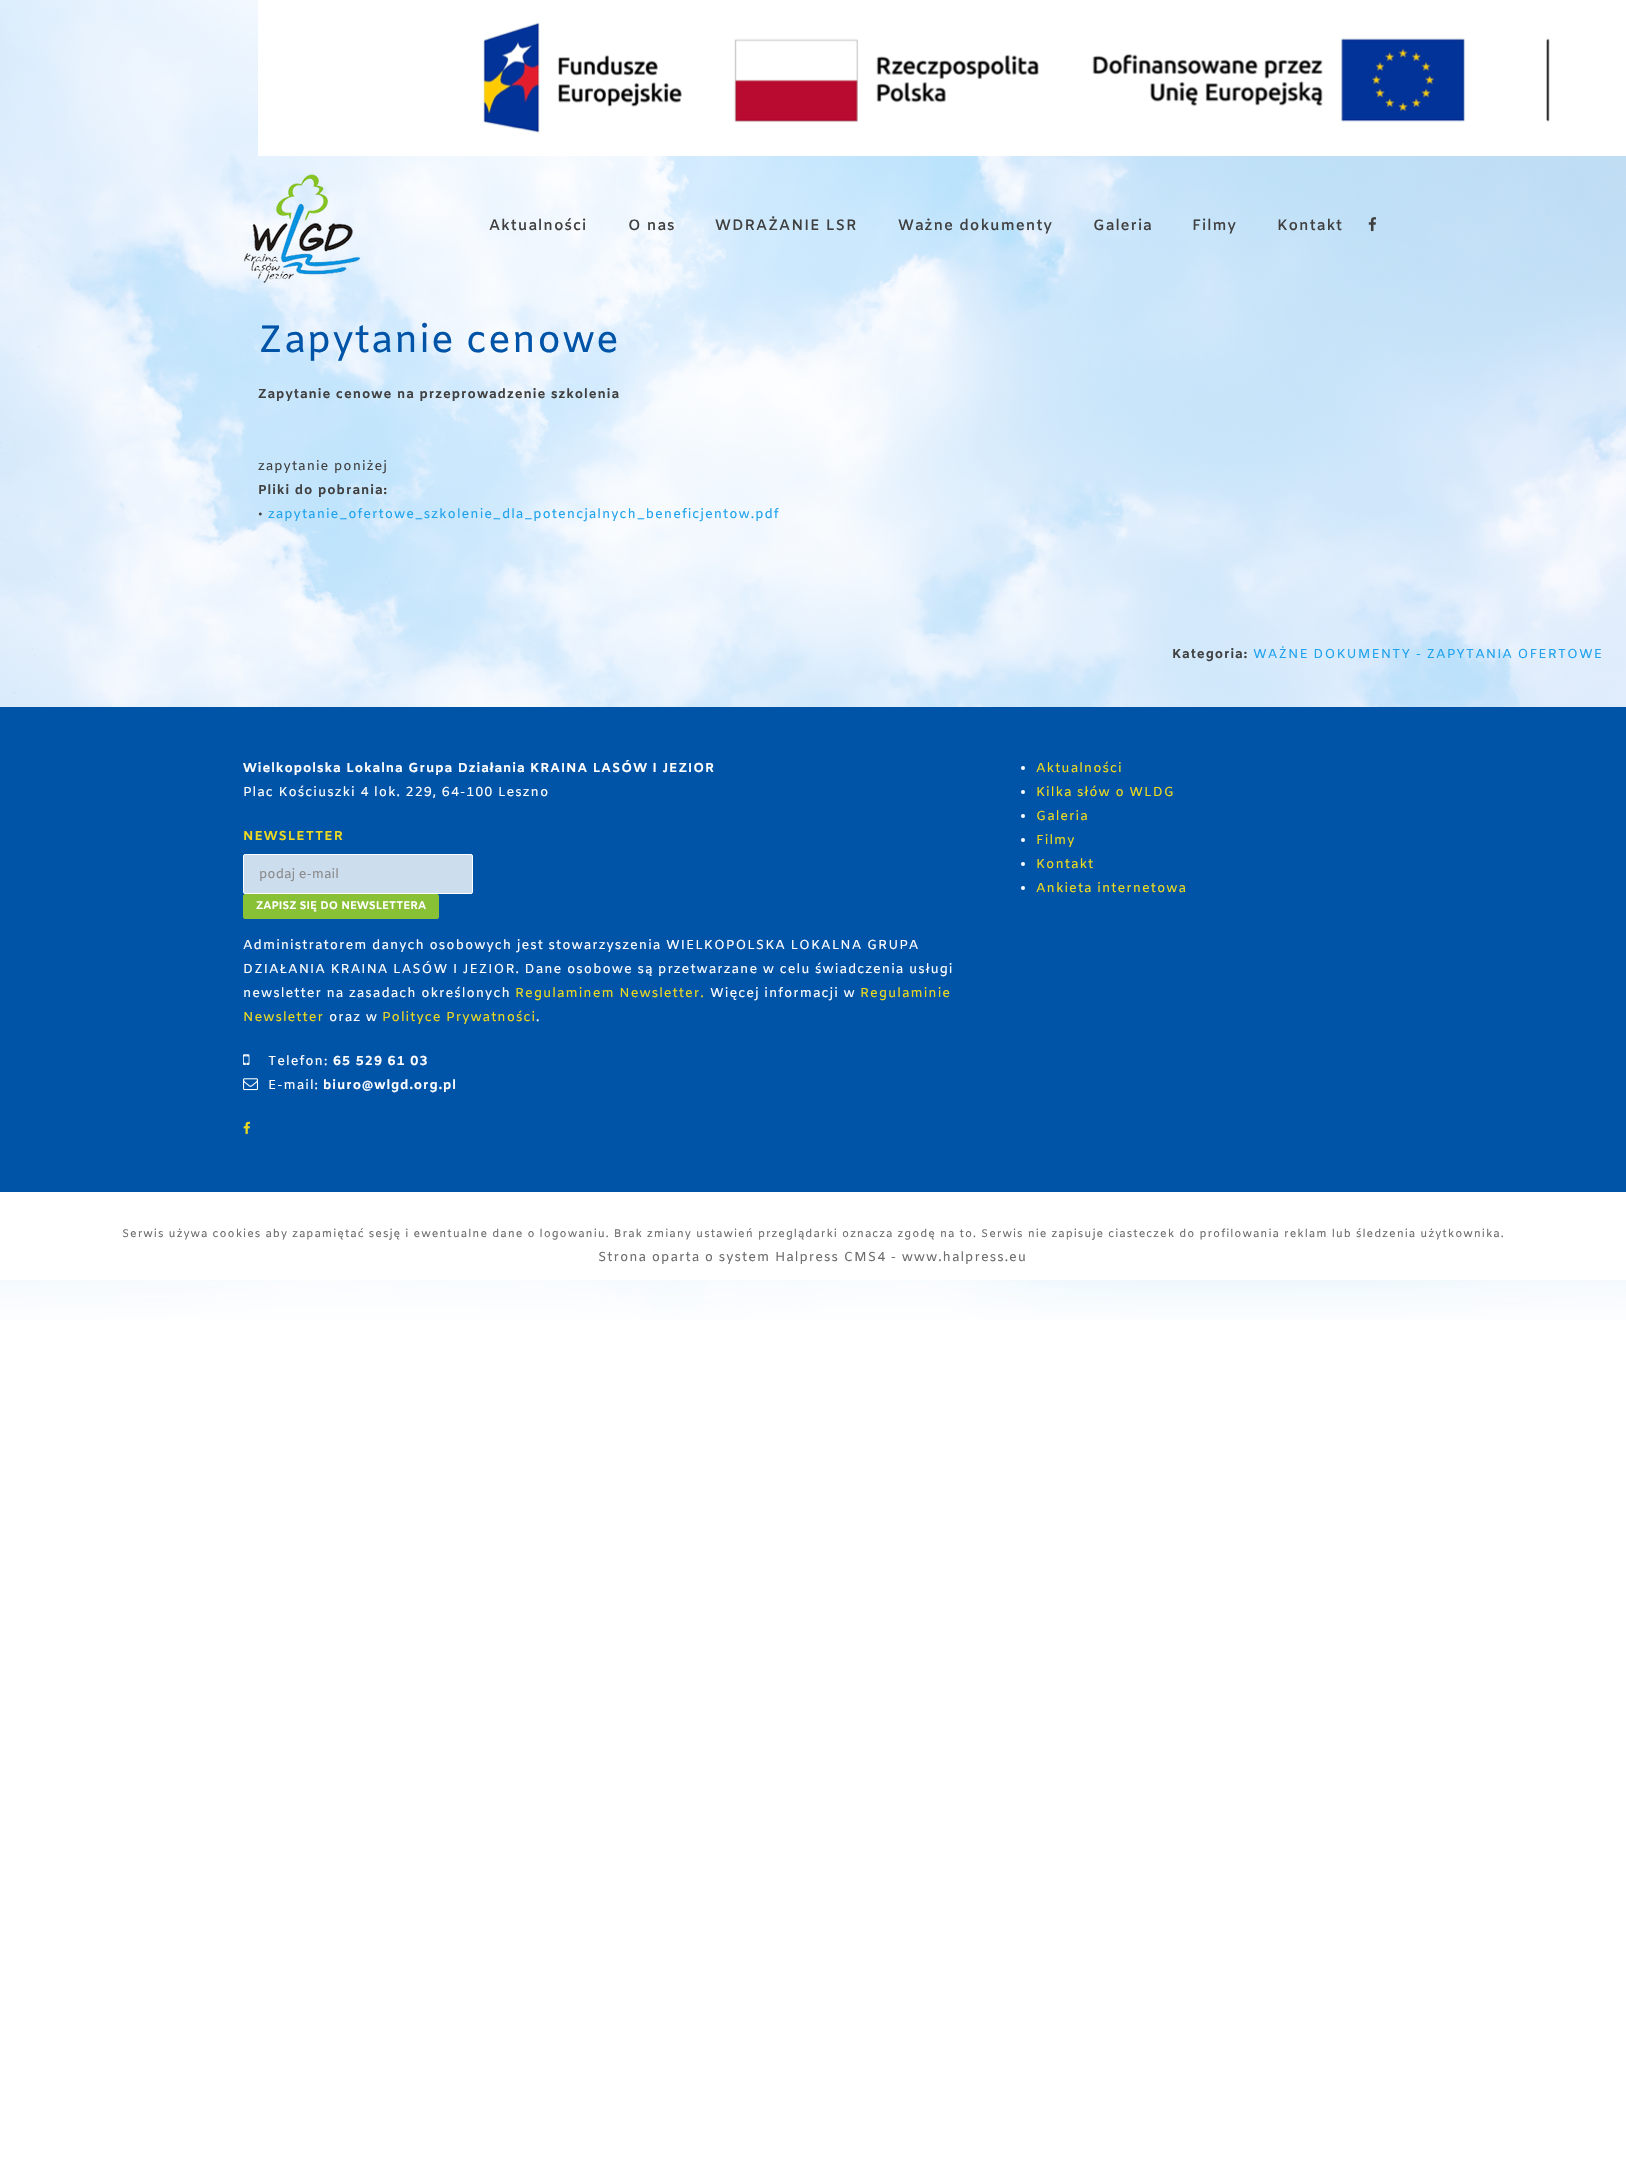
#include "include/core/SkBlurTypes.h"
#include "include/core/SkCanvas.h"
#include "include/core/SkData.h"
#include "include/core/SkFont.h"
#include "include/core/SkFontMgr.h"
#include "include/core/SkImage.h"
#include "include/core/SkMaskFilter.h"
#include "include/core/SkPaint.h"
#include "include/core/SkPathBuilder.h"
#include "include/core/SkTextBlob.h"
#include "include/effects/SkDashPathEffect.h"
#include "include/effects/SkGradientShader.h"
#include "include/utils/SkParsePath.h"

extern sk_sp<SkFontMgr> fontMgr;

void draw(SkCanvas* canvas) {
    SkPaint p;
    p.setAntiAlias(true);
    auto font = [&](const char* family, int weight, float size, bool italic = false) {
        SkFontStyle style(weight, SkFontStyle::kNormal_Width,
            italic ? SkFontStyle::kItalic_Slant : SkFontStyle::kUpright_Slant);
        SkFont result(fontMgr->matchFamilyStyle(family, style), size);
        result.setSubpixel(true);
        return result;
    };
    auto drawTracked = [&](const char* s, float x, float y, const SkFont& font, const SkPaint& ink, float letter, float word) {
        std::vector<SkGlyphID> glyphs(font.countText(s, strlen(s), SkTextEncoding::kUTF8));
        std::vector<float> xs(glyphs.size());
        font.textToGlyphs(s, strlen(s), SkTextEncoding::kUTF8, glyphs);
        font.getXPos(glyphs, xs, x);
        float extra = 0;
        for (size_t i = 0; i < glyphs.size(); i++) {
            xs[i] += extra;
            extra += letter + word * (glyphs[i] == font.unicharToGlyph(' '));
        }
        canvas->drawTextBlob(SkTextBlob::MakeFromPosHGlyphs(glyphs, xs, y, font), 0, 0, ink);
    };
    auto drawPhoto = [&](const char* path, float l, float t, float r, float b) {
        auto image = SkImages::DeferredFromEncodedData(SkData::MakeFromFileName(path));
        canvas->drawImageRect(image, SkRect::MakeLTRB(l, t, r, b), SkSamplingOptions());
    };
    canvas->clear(0xFFFFFFFF);
    drawPhoto("media/1.png", 0, 0, 1626, 1320);
    drawPhoto("media/2.png", 258, 0, 1626, 156);
    drawPhoto("media/3.png", 244, 174, 361, 283);
    auto font1 = font("Amiko", 600, 15);
    p.setColor(0xFF404040);
    {
        const struct { const char* s; float x, y; } items[] = {
            {"Aktualności", 489, 230},
            {"O nas", 628, 230},
            {"WDRAŻANIE LSR", 715, 230},
            {"Ważne dokumenty", 898, 230},
            {"Galeria", 1093, 230},
            {"Filmy", 1192, 230},
            {"Kontakt", 1277, 230},
        };
        for (auto [s, x, y] : items) {
            drawTracked(s, x, y, font1, p, 1, 0);
        }
    }
    drawPhoto("media/4.png", 1368, 217, 1377, 232);
    auto font2 = font("Amiko", 400, 38);
    p.setColor(0xFF0054A8);
    drawTracked("Zapytanie cenowe", 258, 352, font2, p, 1, 0);
    auto font3 = font("Amiko", 700, 13);
    p.setColor(0xFF404040);
    drawTracked("Zapytanie cenowe na przeprowadzenie szkolenia", 258, 398, font3, p, 1, 0);
    auto font4 = font("Amiko", 400, 13);
    drawTracked("zapytanie poniżej", 258, 470, font4, p, 1, 0);
    drawTracked("Pliki do pobrania:", 258, 494, font3, p, 1, 0);
    drawTracked("•", 258, 518, font4, p, 1, 0);
    p.setColor(0xFF20A3ED);
    drawTracked("zapytanie_ofertowe_szkolenie_dla_potencjalnych_beneficjentow.pdf", 268, 518, font4, p, 1, 0);
    p.setColor(0xFF404040);
    drawTracked("Kategoria:", 1172, 658, font3, p, 1, 0);
    p.setColor(0xFF20A3ED);
    drawTracked("WAŻNE DOKUMENTY - ZAPYTANIA OFERTOWE", 1253, 658, font4, p, 1, 0);
    p.setColor(0xFF0054A8);
    canvas->drawRect(SkRect::MakeLTRB(0, 707, 1626, 1192), p);
    p.setColor(0xFFFFFFFF);
    drawTracked("Wielkopolska Lokalna Grupa Działania KRAINA LASÓW I JEZIOR", 243, 772, font3, p, 1, 0);
    drawTracked("Plac Kościuszki 4 lok. 229, 64-100 Leszno", 243, 796, font4, p, 1, 0);
    p.setColor(0xFFEDD920);
    drawTracked("NEWSLETTER", 243, 840, font3, p, 1, 0);
    p.setColor(0xFFCCDDEE);
    canvas->drawRoundRect(SkRect::MakeLTRB(243.5f, 854.5f, 472.5f, 893.5f), 1.5f, 1.5f, p);
    p.setStyle(SkPaint::kStroke_Style);
    p.setStrokeWidth(1);
    p.setColor(0xFFFFFFFF);
    canvas->drawRoundRect(SkRect::MakeLTRB(243.5f, 854.5f, 472.5f, 893.5f), 1.5f, 1.5f, p);
    p.setStyle(SkPaint::kFill_Style);
    p.setColor(0xFF8B8B8B);
    canvas->drawString("podaj e-mail", 259, 878, font4, p);
    p.setColor(0xFF88C135);
    canvas->drawRoundRect(SkRect::MakeLTRB(243.5f, 894.5f, 438.5f, 918.5f), 1.5f, 1.5f, p);
    p.setStyle(SkPaint::kStroke_Style);
    canvas->drawRoundRect(SkRect::MakeLTRB(243.5f, 894.5f, 438.5f, 918.5f), 1.5f, 1.5f, p);
    auto font5 = font("Amiko", 700, 11);
    p.setStyle(SkPaint::kFill_Style);
    p.setColor(0xFFFFFFFF);
    canvas->drawString("ZAPISZ SIĘ DO NEWSLETTERA", 256, 909, font5, p);
    {
        const struct { const char* s; float x, y; } items[] = {
            {"Administratorem danych osobowych jest stowarzyszenia WIELKOPOLSKA LOKALNA GRUPA", 243, 949},
            {"DZIAŁANIA KRAINA LASÓW I JEZIOR. Dane osobowe są przetwarzane w celu świadczenia usługi", 243, 973},
            {"newsletter na zasadach określonych", 243, 997},
        };
        for (auto [s, x, y] : items) {
            drawTracked(s, x, y, font4, p, 1, 0);
        }
    }
    p.setColor(0xFFEDD920);
    drawTracked("Regulaminem Newsletter.", 515, 997, font4, p, 1, 0);
    p.setColor(0xFFFFFFFF);
    drawTracked("Więcej informacji w", 710, 997, font4, p, 1, 0);
    p.setColor(0xFFEDD920);
    drawTracked("Regulaminie", 860, 997, font4, p, 1, 0);
    drawTracked("Newsletter", 243, 1021, font4, p, 1, 0);
    p.setColor(0xFFFFFFFF);
    drawTracked("oraz w", 329, 1021, font4, p, 1, 0);
    p.setColor(0xFFEDD920);
    drawTracked("Polityce Prywatności", 382, 1021, font4, p, 1, 0);
    p.setColor(0xFFFFFFFF);
    drawTracked(".", 536, 1021, font4, p, 1, 0);
    drawPhoto("media/5.png", 243, 1054, 250, 1065);
    drawTracked("Telefon:", 268, 1065, font4, p, 1, 0);
    drawTracked("65 529 61 03", 333, 1065, font3, p, 1, 0);
    drawPhoto("media/6.png", 243, 1078, 258, 1091);
    drawTracked("E-mail:", 268, 1089, font4, p, 1, 0);
    drawTracked("biuro@wlgd.org.pl", 323, 1089, font3, p, 1, 0);
    drawPhoto("media/7.png", 243, 1121, 250, 1134);
    canvas->drawCircle(1023, 768, 2, p);
    p.setColor(0xFFEDD920);
    drawTracked("Aktualności", 1036, 772, font4, p, 1, 0);
    p.setColor(0xFFFFFFFF);
    canvas->drawCircle(1023, 792, 2, p);
    p.setColor(0xFFEDD920);
    drawTracked("Kilka słów o WLDG", 1036, 796, font4, p, 1, 0);
    p.setColor(0xFFFFFFFF);
    canvas->drawCircle(1023, 816, 2, p);
    p.setColor(0xFFEDD920);
    drawTracked("Galeria", 1036, 820, font4, p, 1, 0);
    p.setColor(0xFFFFFFFF);
    canvas->drawCircle(1023, 840, 2, p);
    p.setColor(0xFFEDD920);
    drawTracked("Filmy", 1036, 844, font4, p, 1, 0);
    p.setColor(0xFFFFFFFF);
    canvas->drawCircle(1023, 864, 2, p);
    p.setColor(0xFFEDD920);
    drawTracked("Kontakt", 1036, 868, font4, p, 1, 0);
    p.setColor(0xFFFFFFFF);
    canvas->drawCircle(1023, 888, 2, p);
    p.setColor(0xFFEDD920);
    drawTracked("Ankieta internetowa", 1036, 892, font4, p, 1, 0);
    p.setColor(0xFFFFFFFF);
    canvas->drawRect(SkRect::MakeLTRB(0, 1192, 1626, 1280), p);
    auto font6 = font("Amiko", 400, 11.05f);
    p.setColor(0xFF6E6E6E);
    drawTracked("Serwis używa cookies aby zapamiętać sesję i ewentualne dane o logowaniu. Brak zmiany ustawień przeglądarki oznacza zgodę na to. Serwis nie zapisuje ciasteczek do profilowania reklam lub śledzenia użytkownika.", 122, 1237, font6, p, 1, 0);
    drawTracked("Strona oparta o system Halpress CMS4 - www.halpress.eu", 598, 1261, font4, p, 1, 0);
}
